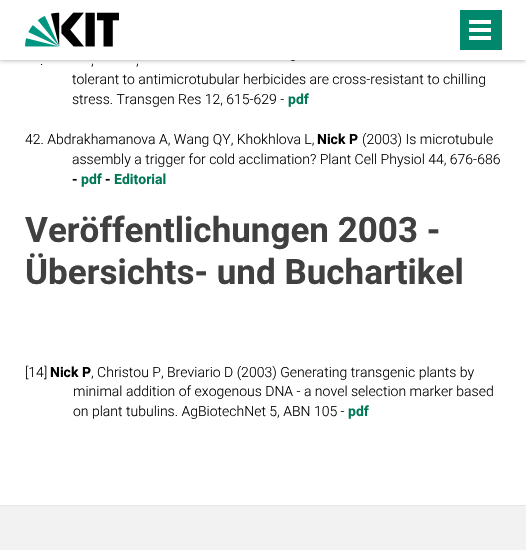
#include "include/core/SkBlurTypes.h"
#include "include/core/SkCanvas.h"
#include "include/core/SkData.h"
#include "include/core/SkFont.h"
#include "include/core/SkFontMgr.h"
#include "include/core/SkImage.h"
#include "include/core/SkMaskFilter.h"
#include "include/core/SkPaint.h"
#include "include/core/SkPathBuilder.h"
#include "include/core/SkTextBlob.h"
#include "include/effects/SkDashPathEffect.h"
#include "include/effects/SkGradientShader.h"
#include "include/utils/SkParsePath.h"

extern sk_sp<SkFontMgr> fontMgr;

void draw(SkCanvas* canvas) {
    SkPaint p;
    p.setAntiAlias(true);
    auto font = [&](const char* family, int weight, float size, bool italic = false) {
        SkFontStyle style(weight, SkFontStyle::kNormal_Width,
            italic ? SkFontStyle::kItalic_Slant : SkFontStyle::kUpright_Slant);
        SkFont result(fontMgr->matchFamilyStyle(family, style), size);
        result.setSubpixel(true);
        return result;
    };
    auto drawPhoto = [&](const char* path, float l, float t, float r, float b) {
        auto image = SkImages::DeferredFromEncodedData(SkData::MakeFromFileName(path));
        canvas->drawImageRect(image, SkRect::MakeLTRB(l, t, r, b), SkSamplingOptions());
    };
    canvas->clear(0xFFFFFFFF);
    p.setColor(0x80404040);
    p.setMaskFilter(SkMaskFilter::MakeBlur(kNormal_SkBlurStyle, 2.5f));
    canvas->drawRect(SkRect::MakeLTRB(0, 0, 526, 60), p);
    p.setMaskFilter(nullptr);
    p.setColor(0xFFFFFFFF);
    canvas->drawRect(SkRect::MakeLTRB(0, 0, 526, 60), p);
    drawPhoto("media/1.png", 25, 12, 119, 47);
    {
        const struct { float l, t, r, b; SkColor color; } items[] = {
            {460, 10, 502, 50, 0xFF00876C},
            {469, 36, 491, 40, 0xFFFFFFFF},
            {469, 28, 491, 32, 0xFFFFFFFF},
            {469, 20, 491, 24, 0xFFFFFFFF},
        };
        for (auto [l, t, r, b, color] : items) {
            p.setColor(color);
            canvas->drawRect(SkRect::MakeLTRB(l, t, r, b), p);
        }
    }
    auto font1 = font("Roboto", 300, 14);
    p.setColor(0xFF000000);
    {
        const struct { const char* s; float x, y; } items[] = {
            {"-", 291, 65},
            {".", 40, 65},
            {",", 91, 65},
            {",", 136, 65},
            {"tolerant to antimicrotubular herbicides are cross-resistant to chilling", 72, 84},
            {"stress. Transgen Res 12, 615-629 -", 72, 104},
        };
        for (auto [s, x, y] : items) {
            canvas->drawString(s, x, y, font1, p);
        }
    }
    auto font2 = font("Roboto", 700, 14);
    p.setColor(0xFF007755);
    canvas->drawString("pdf", 288, 104, font2, p);
    p.setColor(0xFF000000);
    canvas->drawString("42. Abdrakhamanova A, Wang QY, Khokhlova L,", 25, 144, font1, p);
    canvas->drawString("Nick P", 317, 144, font2, p);
    canvas->drawString("(2003) Is microtubule", 362, 144, font1, p);
    canvas->drawString("assembly a trigger for cold acclimation? Plant Cell Physiol 44, 676-686", 72, 164, font1, p);
    canvas->drawString("-", 72, 184, font2, p);
    p.setColor(0xFF007755);
    canvas->drawString("pdf", 81, 184, font2, p);
    p.setColor(0xFF000000);
    canvas->drawString("-", 105, 184, font2, p);
    p.setColor(0xFF007755);
    canvas->drawString("Editorial", 114, 184, font2, p);
    auto font3 = font("Roboto", 700, 35);
    p.setColor(0xFF404040);
    canvas->drawString("Veröffentlichungen 2003 -", 25, 242, font3, p);
    canvas->drawString("Übersichts- und Buchartikel", 25, 284, font3, p);
    p.setColor(0xFF000000);
    canvas->drawString("[14]", 25, 377, font1, p);
    canvas->drawString("Nick P", 50, 377, font2, p);
    {
        const struct { const char* s; float x, y; } items[] = {
            {", Christou P, Breviario D (2003) Generating transgenic plants by", 91, 377},
            {"minimal addition of exogenous DNA - a novel selection marker based", 73, 396},
            {"on plant tubulins. AgBiotechNet 5, ABN 105 -", 73, 416},
        };
        for (auto [s, x, y] : items) {
            canvas->drawString(s, x, y, font1, p);
        }
    }
    p.setColor(0xFF007755);
    canvas->drawString("pdf", 348, 416, font2, p);
    p.setColor(0xFFF2F2F2);
    canvas->drawRect(SkRect::MakeLTRB(0, 506, 526, 550), p);
    p.setColor(0xFFE6E6E6);
    canvas->drawRect(SkRect::MakeLTRB(0, 505, 526, 506), p);
}
